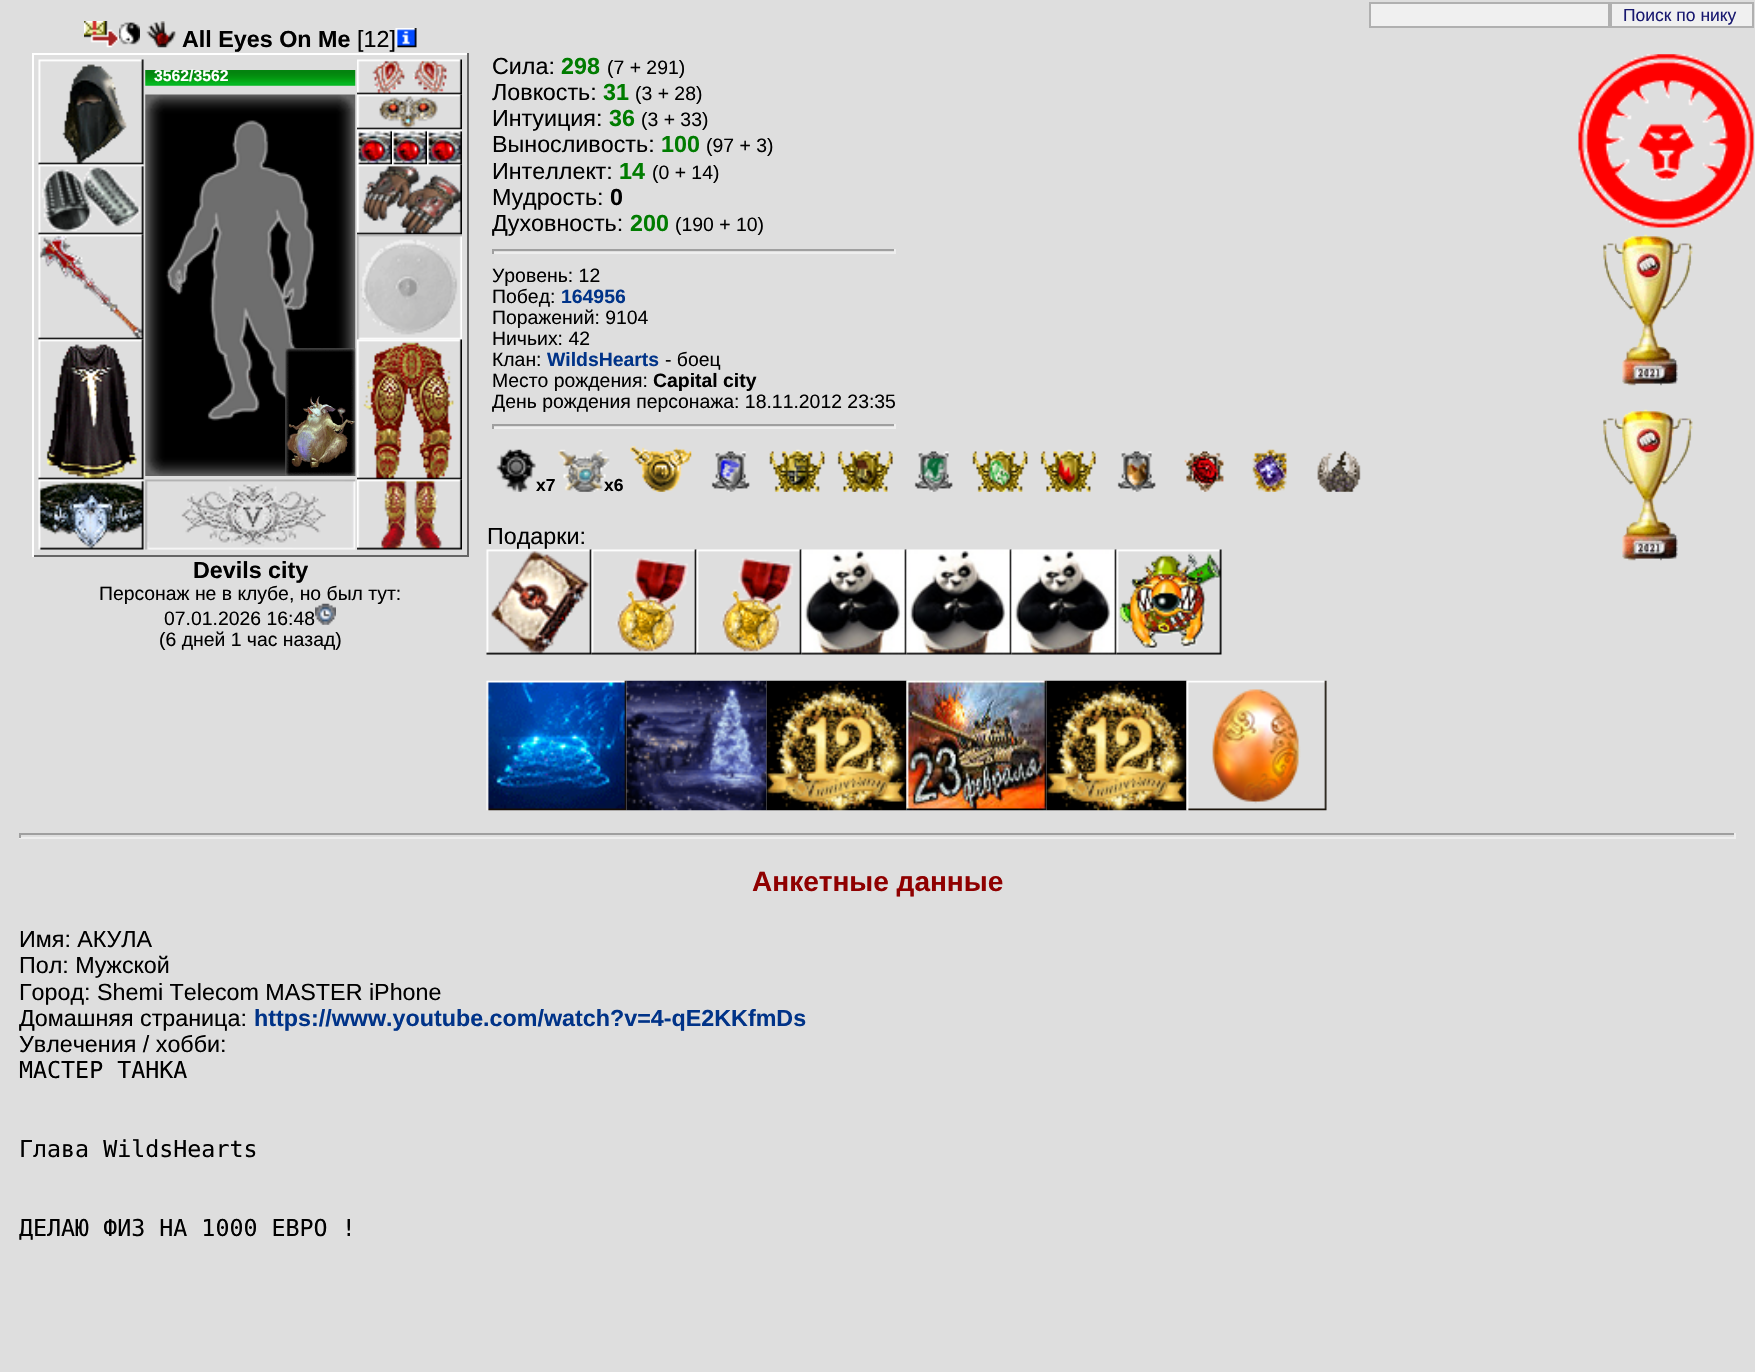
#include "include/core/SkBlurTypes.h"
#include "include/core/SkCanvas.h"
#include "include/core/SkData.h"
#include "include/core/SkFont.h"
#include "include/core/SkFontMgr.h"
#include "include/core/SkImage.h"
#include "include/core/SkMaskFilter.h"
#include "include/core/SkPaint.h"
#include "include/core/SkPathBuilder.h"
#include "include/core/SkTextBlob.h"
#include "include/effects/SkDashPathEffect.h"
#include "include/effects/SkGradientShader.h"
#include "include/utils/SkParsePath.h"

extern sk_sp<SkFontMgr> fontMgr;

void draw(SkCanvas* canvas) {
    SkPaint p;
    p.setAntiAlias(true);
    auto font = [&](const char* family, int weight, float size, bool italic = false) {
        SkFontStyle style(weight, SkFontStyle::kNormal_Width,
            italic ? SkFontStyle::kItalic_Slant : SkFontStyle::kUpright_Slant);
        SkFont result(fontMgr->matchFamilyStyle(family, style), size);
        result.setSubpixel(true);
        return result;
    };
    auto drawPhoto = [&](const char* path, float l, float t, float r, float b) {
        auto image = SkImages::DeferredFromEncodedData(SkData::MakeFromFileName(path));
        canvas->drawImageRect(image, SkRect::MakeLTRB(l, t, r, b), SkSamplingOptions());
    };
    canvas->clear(0xFFDEDEDE);
    p.setColor(0xFFF0F0F0);
    canvas->drawRect(SkRect::MakeLTRB(1370, 3, 1609, 27), p);
    p.setStyle(SkPaint::kStroke_Style);
    p.setStrokeWidth(2);
    p.setColor(0xFFB0B0B0);
    canvas->drawRect(SkRect::MakeLTRB(1370, 3, 1609, 27), p);
    p.setStyle(SkPaint::kFill_Style);
    p.setColor(0xFFF0F0F0);
    canvas->drawRect(SkRect::MakeLTRB(1611, 3, 1753, 27), p);
    p.setStyle(SkPaint::kStroke_Style);
    p.setColor(0xFFB0B0B0);
    canvas->drawRect(SkRect::MakeLTRB(1611, 3, 1753, 27), p);
    auto font1 = font("Liberation Sans", 400, 17.5f);
    p.setStyle(SkPaint::kFill_Style);
    p.setColor(0xFF191970);
    canvas->drawString("Поиск по нику", 1623, 21, font1, p);
    drawPhoto("media/1.png", 1578, 54, 1754, 228);
    drawPhoto("media/2.png", 1603, 234, 1693, 386);
    drawPhoto("media/2.png", 1603, 409, 1693, 561);
    drawPhoto("media/3.png", 84, 21, 119, 48);
    drawPhoto("media/4.png", 119, 22, 140, 45);
    drawPhoto("media/5.png", 146, 21, 176, 48);
    auto font2 = font("Liberation Sans", 700, 23.3f);
    p.setColor(0xFF000000);
    canvas->drawString("All Eyes On Me", 182, 47, font2, p);
    auto font3 = font("Liberation Sans", 400, 23.3f);
    canvas->drawString("[12]", 357, 47, font3, p);
    drawPhoto("media/6.png", 395, 28, 417, 48);
    {
        const struct { float l, t, r, b; SkColor color; } items[] = {
            {32, 53, 469, 55, 0xFFFFFFFF},
            {467, 53, 469, 557, 0xFF666666},
            {32, 555, 469, 557, 0xFF666666},
            {32, 53, 34, 557, 0xFFFFFFFF},
        };
        for (auto [l, t, r, b, color] : items) {
            p.setColor(color);
            canvas->drawRect(SkRect::MakeLTRB(l, t, r, b), p);
        }
    }
    drawPhoto("media/7.png", 38, 59, 144, 165);
    drawPhoto("media/8.png", 38, 164, 144, 235);
    drawPhoto("media/9.png", 38, 234, 144, 340);
    drawPhoto("media/10.png", 38, 339, 144, 480);
    drawPhoto("media/11.png", 38, 479, 144, 550);
    drawPhoto("media/12.png", 145, 70, 356, 86);
    auto font4 = font("Liberation Sans", 700, 15.75f);
    canvas->drawString("3562/3562", 154, 81, font4, p);
    drawPhoto("media/13.png", 145, 94, 356, 476);
    drawPhoto("media/14.png", 285, 348, 356, 476);
    drawPhoto("media/15.png", 145, 479, 356, 550);
    drawPhoto("media/16.png", 357, 59, 462, 95);
    drawPhoto("media/17.png", 357, 94, 462, 130);
    drawPhoto("media/18.png", 357, 129, 392, 165);
    drawPhoto("media/18.png", 392, 129, 427, 165);
    drawPhoto("media/18.png", 427, 129, 462, 165);
    drawPhoto("media/19.png", 357, 164, 462, 235);
    drawPhoto("media/20.png", 357, 234, 462, 340);
    drawPhoto("media/21.png", 357, 339, 462, 480);
    drawPhoto("media/22.png", 357, 479, 462, 550);
    p.setColor(0xFF000000);
    canvas->drawString("Devils city", 193, 578, font2, p);
    auto font5 = font("Liberation Sans", 400, 19.4f);
    canvas->drawString("Персонаж не в клубе, но был тут:", 99, 600, font5, p);
    canvas->drawString("07.01.2026 16:48", 164, 625, font5, p);
    drawPhoto("media/23.png", 315, 603, 336, 625);
    canvas->drawString("(6 дней 1 час назад)", 159, 646, font5, p);
    canvas->drawString("Сила:", 492, 74, font3, p);
    p.setColor(0xFF007C00);
    canvas->drawString("298", 561, 74, font2, p);
    p.setColor(0xFF000000);
    canvas->drawString("(7 + 291)", 607, 74, font5, p);
    canvas->drawString("Ловкость:", 492, 100, font3, p);
    p.setColor(0xFF007C00);
    canvas->drawString("31", 603, 100, font2, p);
    p.setColor(0xFF000000);
    canvas->drawString("(3 + 28)", 635, 100, font5, p);
    canvas->drawString("Интуиция:", 492, 126, font3, p);
    p.setColor(0xFF007C00);
    canvas->drawString("36", 609, 126, font2, p);
    p.setColor(0xFF000000);
    canvas->drawString("(3 + 33)", 641, 126, font5, p);
    canvas->drawString("Выносливость:", 492, 152, font3, p);
    p.setColor(0xFF007C00);
    canvas->drawString("100", 661, 152, font2, p);
    p.setColor(0xFF000000);
    canvas->drawString("(97 + 3)", 706, 152, font5, p);
    canvas->drawString("Интеллект:", 492, 179, font3, p);
    p.setColor(0xFF007C00);
    canvas->drawString("14", 619, 179, font2, p);
    p.setColor(0xFF000000);
    canvas->drawString("(0 + 14)", 652, 179, font5, p);
    canvas->drawString("Мудрость:", 492, 205, font3, p);
    canvas->drawString("0", 610, 205, font2, p);
    canvas->drawString("Духовность:", 492, 231, font3, p);
    p.setColor(0xFF007C00);
    canvas->drawString("200", 630, 231, font2, p);
    p.setColor(0xFF000000);
    canvas->drawString("(190 + 10)", 675, 231, font5, p);
    {
        const struct { float l, t, r, b; SkColor color; } items[] = {
            {492, 249, 896, 251, 0xFF9F9F9F},
            {894, 249, 896, 254, 0xFFEEEEEE},
            {492, 252, 896, 254, 0xFFEEEEEE},
            {492, 249, 494, 254, 0xFF9F9F9F},
        };
        for (auto [l, t, r, b, color] : items) {
            p.setColor(color);
            canvas->drawRect(SkRect::MakeLTRB(l, t, r, b), p);
        }
    }
    p.setColor(0xFF000000);
    canvas->drawString("Уровень: 12", 492, 282, font5, p);
    canvas->drawString("Побед:", 492, 303, font5, p);
    auto font6 = font("Liberation Sans", 700, 19.4f);
    p.setColor(0xFF003388);
    canvas->drawString("164956", 561, 303, font6, p);
    p.setColor(0xFF000000);
    {
        const struct { const char* s; float x, y; } items[] = {
            {"Поражений: 9104", 492, 324},
            {"Ничьих: 42", 492, 345},
            {"Клан:", 492, 366},
        };
        for (auto [s, x, y] : items) {
            canvas->drawString(s, x, y, font5, p);
        }
    }
    p.setColor(0xFF003388);
    canvas->drawString("WildsHearts", 547, 366, font6, p);
    p.setColor(0xFF000000);
    canvas->drawString("- боец", 665, 366, font5, p);
    canvas->drawString("Место рождения:", 492, 387, font5, p);
    canvas->drawString("Capital city", 653, 387, font6, p);
    canvas->drawString("День рождения персонажа: 18.11.2012 23:35", 492, 408, font5, p);
    {
        const struct { float l, t, r, b; SkColor color; } items[] = {
            {492, 424, 896, 426, 0xFF9F9F9F},
            {894, 424, 896, 429, 0xFFEEEEEE},
            {492, 427, 896, 429, 0xFFEEEEEE},
            {492, 424, 494, 429, 0xFF9F9F9F},
        };
        for (auto [l, t, r, b, color] : items) {
            p.setColor(color);
            canvas->drawRect(SkRect::MakeLTRB(l, t, r, b), p);
        }
    }
    drawPhoto("media/24.png", 496, 449, 536, 492);
    auto font7 = font("Liberation Sans", 700, 17.5f);
    p.setColor(0xFF000000);
    canvas->drawString("x7", 536, 491, font7, p);
    drawPhoto("media/25.png", 558, 449, 610, 492);
    canvas->drawString("x6", 604, 491, font7, p);
    drawPhoto("media/26.png", 630, 446, 692, 492);
    drawPhoto("media/27.png", 711, 451, 750, 492);
    drawPhoto("media/28.png", 769, 449, 825, 492);
    drawPhoto("media/29.png", 837, 449, 893, 492);
    drawPhoto("media/30.png", 914, 451, 953, 492);
    drawPhoto("media/31.png", 972, 449, 1028, 492);
    drawPhoto("media/32.png", 1040, 449, 1096, 492);
    drawPhoto("media/33.png", 1117, 451, 1156, 492);
    drawPhoto("media/34.png", 1184, 451, 1224, 492);
    drawPhoto("media/35.png", 1252, 449, 1287, 492);
    drawPhoto("media/36.png", 1317, 451, 1361, 492);
    canvas->drawString("Подарки:", 487, 544, font3, p);
    drawPhoto("media/37.png", 486, 549, 592, 655);
    drawPhoto("media/38.png", 591, 549, 697, 655);
    drawPhoto("media/38.png", 696, 549, 802, 655);
    drawPhoto("media/39.png", 801, 549, 907, 655);
    drawPhoto("media/40.png", 906, 549, 1012, 655);
    drawPhoto("media/41.png", 1011, 549, 1117, 655);
    drawPhoto("media/42.png", 1116, 549, 1222, 655);
    drawPhoto("media/43.png", 486, 680, 627, 811);
    drawPhoto("media/44.png", 626, 680, 767, 811);
    drawPhoto("media/45.png", 766, 680, 907, 811);
    drawPhoto("media/46.png", 906, 680, 1047, 811);
    drawPhoto("media/47.png", 1046, 680, 1187, 811);
    drawPhoto("media/48.png", 1186, 680, 1327, 811);
    {
        const struct { float l, t, r, b; SkColor color; } items[] = {
            {19, 833, 1736, 835, 0xFF9F9F9F},
            {1734, 833, 1736, 838, 0xFFEEEEEE},
            {19, 837, 1736, 839, 0xFFEEEEEE},
            {19, 833, 21, 838, 0xFF9F9F9F},
        };
        for (auto [l, t, r, b, color] : items) {
            p.setColor(color);
            canvas->drawRect(SkRect::MakeLTRB(l, t, r, b), p);
        }
    }
    auto font8 = font("Liberation Sans", 700, 28);
    p.setColor(0xFF8F0000);
    canvas->drawString("Анкетные данные", 752, 891, font8, p);
    p.setColor(0xFF000000);
    {
        const struct { const char* s; float x, y; } items[] = {
            {"Имя: АКУЛА", 19, 947},
            {"Пол: Мужской", 19, 973},
            {"Город: Shemi Telecom MASTER iPhone", 19, 1000},
            {"Домашняя страница:", 19, 1026},
        };
        for (auto [s, x, y] : items) {
            canvas->drawString(s, x, y, font3, p);
        }
    }
    p.setColor(0xFF003388);
    canvas->drawString("https://www.youtube.com/watch?v=4-qE2KKfmDs", 254, 1026, font2, p);
    p.setColor(0xFF000000);
    canvas->drawString("Увлечения / хобби:", 19, 1052, font3, p);
    auto font9 = font("DejaVu Sans Mono", 400, 23.3f);
    {
        const struct { const char* s; float x, y; } items[] = {
            {"МАСТЕР ТАНКА", 19, 1078},
            {"Глава WildsHearts", 19, 1157},
            {"ДЕЛАЮ ФИЗ НА 1000 ЕВРО !", 19, 1236},
        };
        for (auto [s, x, y] : items) {
            canvas->drawString(s, x, y, font9, p);
        }
    }
}
